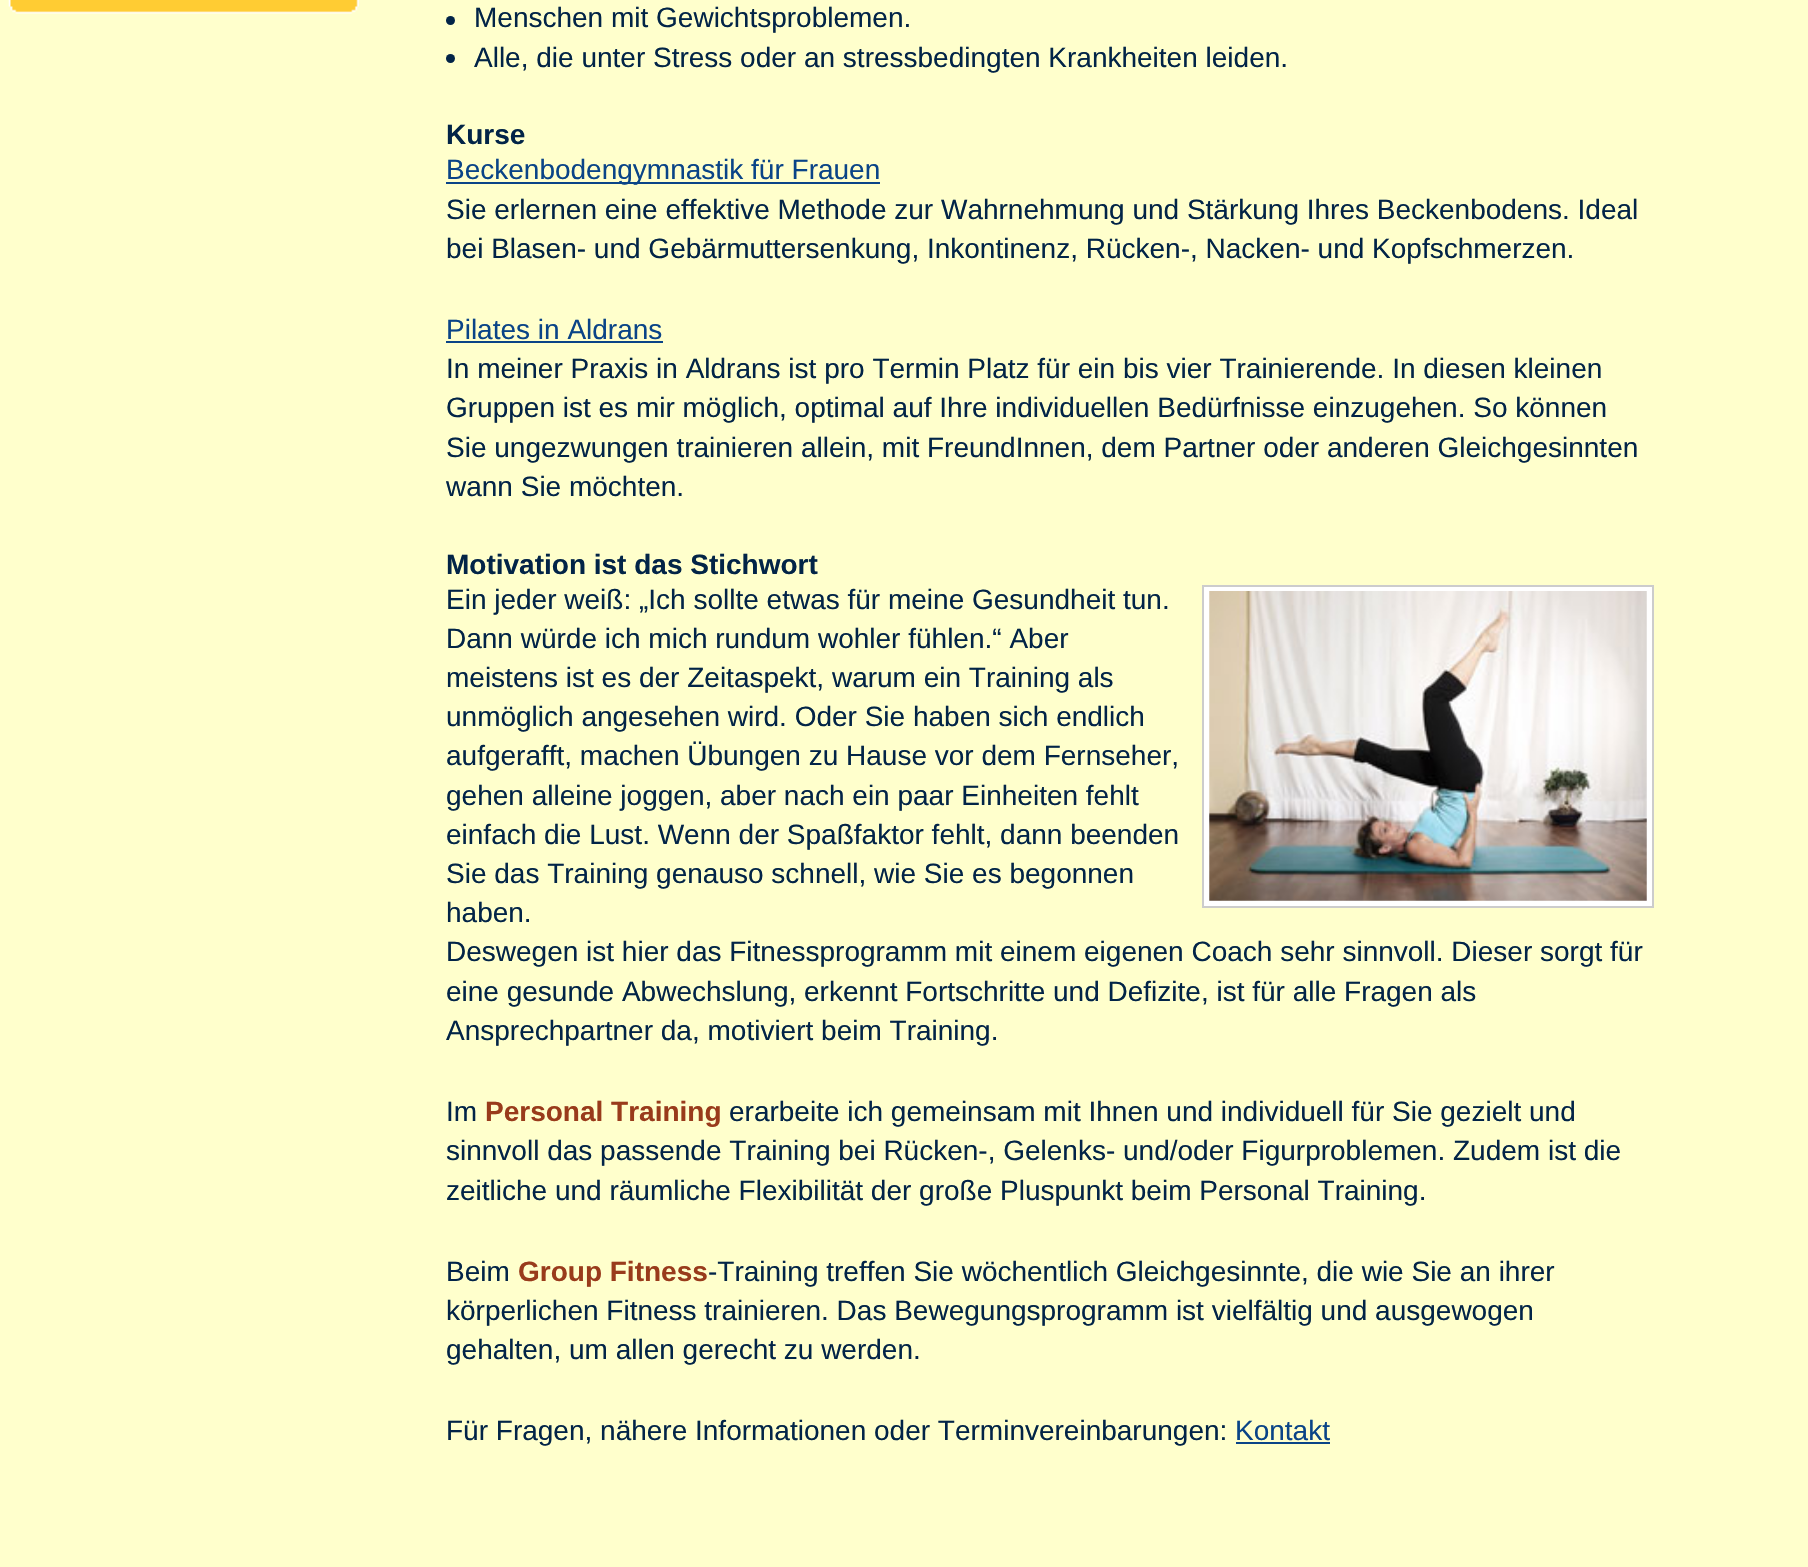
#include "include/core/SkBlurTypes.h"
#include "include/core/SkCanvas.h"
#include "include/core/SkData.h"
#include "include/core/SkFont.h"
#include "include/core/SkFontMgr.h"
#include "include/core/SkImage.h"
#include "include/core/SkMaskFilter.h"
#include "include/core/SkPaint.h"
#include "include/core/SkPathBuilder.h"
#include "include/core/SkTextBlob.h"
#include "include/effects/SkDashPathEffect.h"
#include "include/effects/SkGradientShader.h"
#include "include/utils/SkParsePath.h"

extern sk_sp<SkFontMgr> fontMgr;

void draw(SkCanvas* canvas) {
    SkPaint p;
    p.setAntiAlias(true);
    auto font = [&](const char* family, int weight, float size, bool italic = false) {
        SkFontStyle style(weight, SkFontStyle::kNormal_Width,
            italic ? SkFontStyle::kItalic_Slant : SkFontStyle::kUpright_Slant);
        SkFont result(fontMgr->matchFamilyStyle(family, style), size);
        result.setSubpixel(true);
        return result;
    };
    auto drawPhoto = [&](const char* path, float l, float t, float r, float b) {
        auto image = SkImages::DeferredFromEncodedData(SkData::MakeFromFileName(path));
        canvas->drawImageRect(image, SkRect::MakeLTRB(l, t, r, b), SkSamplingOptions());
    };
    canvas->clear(0xFFFFFFCC);
    drawPhoto("media/1.png", 8, 0, 359, 14);
    p.setColor(0xFF022447);
    canvas->drawCircle(450.5f, 20.5f, 4.5f, p);
    auto font1 = font("Liberation Sans", 400, 28);
    canvas->drawString("Menschen mit Gewichtsproblemen.", 474, 27, font1, p);
    canvas->drawCircle(450.5f, 58.5f, 4.5f, p);
    canvas->drawString("Alle, die unter Stress oder an stressbedingten Krankheiten leiden.", 474, 67, font1, p);
    auto font2 = font("Liberation Sans", 700, 28);
    canvas->drawString("Kurse", 446, 144, font2, p);
    p.setColor(0xFF0A4487);
    canvas->drawRect(SkRect::MakeLTRB(446, 182, 880, 184), p);
    canvas->drawString("Beckenbodengymnastik für Frauen", 446, 179, font1, p);
    p.setColor(0xFF022447);
    canvas->drawString("Sie erlernen eine effektive Methode zur Wahrnehmung und Stärkung Ihres Beckenbodens. Ideal", 446, 219, font1, p);
    canvas->drawString("bei Blasen- und Gebärmuttersenkung, Inkontinenz, Rücken-, Nacken- und Kopfschmerzen.", 446, 258, font1, p);
    p.setColor(0xFF0A4487);
    canvas->drawString("Pilates in Aldrans", 446, 339, font1, p);
    canvas->drawRect(SkRect::MakeLTRB(446, 341, 663, 343), p);
    p.setColor(0xFF022447);
    {
        const struct { const char* s; float x, y; } items[] = {
            {"In meiner Praxis in Aldrans ist pro Termin Platz für ein bis vier Trainierende. In diesen kleinen", 446, 378},
            {"Gruppen ist es mir möglich, optimal auf Ihre individuellen Bedürfnisse einzugehen. So können", 446, 417},
            {"Sie ungezwungen trainieren allein, mit FreundInnen, dem Partner oder anderen Gleichgesinnten", 446, 457},
            {"wann Sie möchten.", 446, 496},
        };
        for (auto [s, x, y] : items) {
            canvas->drawString(s, x, y, font1, p);
        }
    }
    canvas->drawString("Motivation ist das Stichwort", 446, 574, font2, p);
    canvas->drawString("Ein jeder weiß: „Ich sollte etwas für meine Gesundheit tun.", 446, 609, font1, p);
    p.setColor(0xFFFFFFFF);
    canvas->drawRect(SkRect::MakeLTRB(1203, 586, 1653, 907), p);
    p.setStyle(SkPaint::kStroke_Style);
    p.setStrokeWidth(2);
    p.setColor(0xFFCCCCCC);
    canvas->drawRect(SkRect::MakeLTRB(1203, 586, 1653, 907), p);
    drawPhoto("media/2.png", 1209, 591, 1647, 901);
    p.setStyle(SkPaint::kFill_Style);
    p.setColor(0xFF022447);
    {
        const struct { const char* s; float x, y; } items[] = {
            {"Dann würde ich mich rundum wohler fühlen.“ Aber", 446, 648},
            {"meistens ist es der Zeitaspekt, warum ein Training als", 446, 687},
            {"unmöglich angesehen wird. Oder Sie haben sich endlich", 446, 726},
            {"aufgerafft, machen Übungen zu Hause vor dem Fernseher,", 446, 765},
            {"gehen alleine joggen, aber nach ein paar Einheiten fehlt", 446, 805},
            {"einfach die Lust. Wenn der Spaßfaktor fehlt, dann beenden", 446, 844},
            {"Sie das Training genauso schnell, wie Sie es begonnen", 446, 883},
            {"haben.", 446, 922},
            {"Deswegen ist hier das Fitnessprogramm mit einem eigenen Coach sehr sinnvoll. Dieser sorgt für", 446, 961},
            {"eine gesunde Abwechslung, erkennt Fortschritte und Defizite, ist für alle Fragen als", 446, 1001},
            {"Ansprechpartner da, motiviert beim Training.", 446, 1040},
            {"Im", 446, 1121},
        };
        for (auto [s, x, y] : items) {
            canvas->drawString(s, x, y, font1, p);
        }
    }
    p.setColor(0xFF993B1B);
    canvas->drawString("Personal Training", 485, 1121, font2, p);
    p.setColor(0xFF022447);
    {
        const struct { const char* s; float x, y; } items[] = {
            {"erarbeite ich gemeinsam mit Ihnen und individuell für Sie gezielt und", 729, 1121},
            {"sinnvoll das passende Training bei Rücken-, Gelenks- und/oder Figurproblemen. Zudem ist die", 446, 1160},
            {"zeitliche und räumliche Flexibilität der große Pluspunkt beim Personal Training.", 446, 1200},
            {"Beim", 446, 1281},
        };
        for (auto [s, x, y] : items) {
            canvas->drawString(s, x, y, font1, p);
        }
    }
    p.setColor(0xFF993B1B);
    canvas->drawString("Group Fitness", 518, 1281, font2, p);
    p.setColor(0xFF022447);
    {
        const struct { const char* s; float x, y; } items[] = {
            {"-Training treffen Sie wöchentlich Gleichgesinnte, die wie Sie an ihrer", 708, 1281},
            {"körperlichen Fitness trainieren. Das Bewegungsprogramm ist vielfältig und ausgewogen", 446, 1320},
            {"gehalten, um allen gerecht zu werden.", 446, 1359},
            {"Für Fragen, nähere Informationen oder Terminvereinbarungen:", 446, 1440},
        };
        for (auto [s, x, y] : items) {
            canvas->drawString(s, x, y, font1, p);
        }
    }
    p.setColor(0xFF0A4487);
    canvas->drawString("Kontakt", 1235, 1440, font1, p);
    canvas->drawRect(SkRect::MakeLTRB(1236, 1442, 1330, 1444), p);
}
